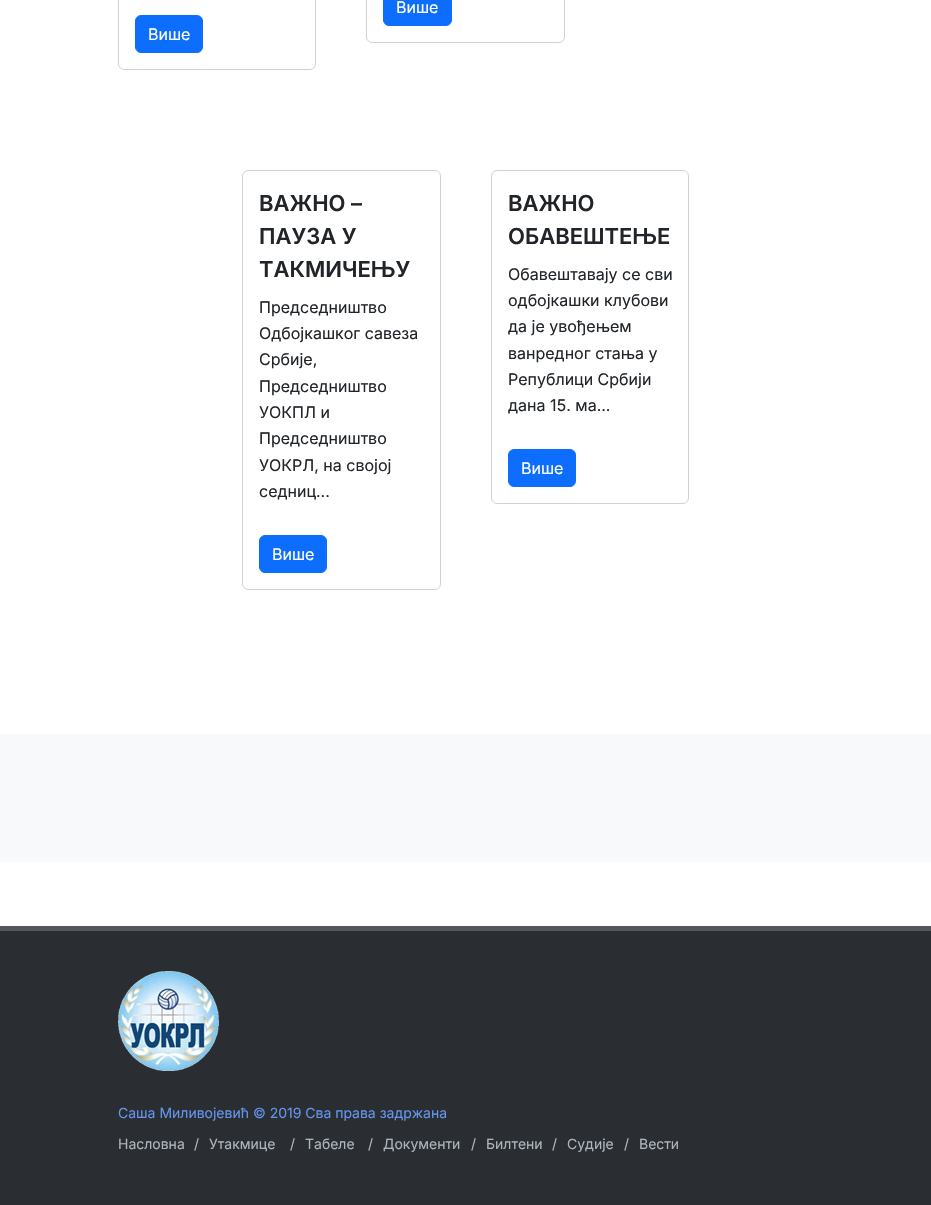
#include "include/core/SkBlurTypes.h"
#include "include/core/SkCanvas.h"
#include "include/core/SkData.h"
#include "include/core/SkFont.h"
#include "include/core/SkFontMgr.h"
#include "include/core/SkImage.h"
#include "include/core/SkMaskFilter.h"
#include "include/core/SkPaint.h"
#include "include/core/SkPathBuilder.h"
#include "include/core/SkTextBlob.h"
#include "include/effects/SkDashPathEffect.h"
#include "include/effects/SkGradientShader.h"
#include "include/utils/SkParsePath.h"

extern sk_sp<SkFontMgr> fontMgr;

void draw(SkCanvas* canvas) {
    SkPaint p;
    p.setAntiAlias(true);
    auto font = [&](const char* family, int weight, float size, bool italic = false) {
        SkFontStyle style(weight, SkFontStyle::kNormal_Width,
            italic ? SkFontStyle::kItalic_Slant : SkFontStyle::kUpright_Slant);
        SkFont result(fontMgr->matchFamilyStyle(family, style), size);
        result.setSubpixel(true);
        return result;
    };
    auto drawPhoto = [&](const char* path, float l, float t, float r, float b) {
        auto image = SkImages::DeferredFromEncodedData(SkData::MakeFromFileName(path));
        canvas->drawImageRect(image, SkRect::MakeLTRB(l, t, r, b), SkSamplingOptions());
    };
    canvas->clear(0xFFFFFFFF);
    p.setStyle(SkPaint::kStroke_Style);
    p.setStrokeWidth(1);
    p.setColor(0xFFD2D2D2);
    canvas->drawRoundRect(SkRect::MakeLTRB(366.5f, -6.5f, 564.5f, 42.5f), 5.5f, 5.5f, p);
    p.setStyle(SkPaint::kFill_Style);
    p.setColor(0xFF0D6EFD);
    canvas->drawRoundRect(SkRect::MakeLTRB(383.5f, -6.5f, 451.5f, 25.5f), 5.5f, 5.5f, p);
    p.setStyle(SkPaint::kStroke_Style);
    canvas->drawRoundRect(SkRect::MakeLTRB(383.5f, -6.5f, 451.5f, 25.5f), 5.5f, 5.5f, p);
    auto font1 = font("Inter", 400, 16);
    p.setStyle(SkPaint::kFill_Style);
    p.setColor(0xFFFFFFFF);
    canvas->drawString("Више", 396, 13, font1, p);
    p.setStyle(SkPaint::kStroke_Style);
    p.setColor(0xFFD2D2D2);
    canvas->drawRoundRect(SkRect::MakeLTRB(118.5f, -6.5f, 315.5f, 69.5f), 5.5f, 5.5f, p);
    p.setStyle(SkPaint::kFill_Style);
    p.setColor(0xFF0D6EFD);
    canvas->drawRoundRect(SkRect::MakeLTRB(135.5f, 15.5f, 202.5f, 52.5f), 5.5f, 5.5f, p);
    p.setStyle(SkPaint::kStroke_Style);
    canvas->drawRoundRect(SkRect::MakeLTRB(135.5f, 15.5f, 202.5f, 52.5f), 5.5f, 5.5f, p);
    p.setStyle(SkPaint::kFill_Style);
    p.setColor(0xFFFFFFFF);
    canvas->drawString("Више", 148, 40, font1, p);
    p.setStyle(SkPaint::kStroke_Style);
    p.setColor(0xFFD2D2D2);
    canvas->drawRoundRect(SkRect::MakeLTRB(242.5f, 170.5f, 440.5f, 589.5f), 5.5f, 5.5f, p);
    auto font2 = font("Inter", 600, 22);
    p.setStyle(SkPaint::kFill_Style);
    p.setColor(0xFF212529);
    {
        const struct { const char* s; float x, y; } items[] = {
            {"ВАЖНО –", 259, 211},
            {"ПАУЗА У", 259, 244},
            {"ТАКМИЧЕЊУ", 259, 277},
        };
        for (auto [s, x, y] : items) {
            canvas->drawString(s, x, y, font2, p);
        }
    }
    {
        const struct { const char* s; float x, y; } items[] = {
            {"Председништво", 259, 313},
            {"Одбојкашког савеза", 259, 339},
            {"Србије,", 259, 365},
            {"Председништво", 259, 392},
            {"УОКПЛ и", 259, 418},
            {"Председништво", 259, 444},
            {"УОКРЛ, на својој", 259, 471},
            {"седниц...", 259, 497},
        };
        for (auto [s, x, y] : items) {
            canvas->drawString(s, x, y, font1, p);
        }
    }
    p.setColor(0xFF0D6EFD);
    canvas->drawRoundRect(SkRect::MakeLTRB(259.5f, 535.5f, 326.5f, 572.5f), 5.5f, 5.5f, p);
    p.setStyle(SkPaint::kStroke_Style);
    canvas->drawRoundRect(SkRect::MakeLTRB(259.5f, 535.5f, 326.5f, 572.5f), 5.5f, 5.5f, p);
    p.setStyle(SkPaint::kFill_Style);
    p.setColor(0xFFFFFFFF);
    canvas->drawString("Више", 272, 560, font1, p);
    p.setStyle(SkPaint::kStroke_Style);
    p.setColor(0xFFD2D2D2);
    canvas->drawRoundRect(SkRect::MakeLTRB(491.5f, 170.5f, 688.5f, 503.5f), 5.5f, 5.5f, p);
    p.setStyle(SkPaint::kFill_Style);
    p.setColor(0xFF212529);
    canvas->drawString("ВАЖНО", 508, 211, font2, p);
    canvas->drawString("ОБАВЕШТЕЊЕ", 508, 244, font2, p);
    {
        const struct { const char* s; float x, y; } items[] = {
            {"Обавештавају се сви", 508, 280},
            {"одбојкашки клубови", 508, 306},
            {"да је увођењем", 508, 332},
            {"ванредног стања у", 508, 359},
            {"Републици Србији", 508, 385},
            {"дана 15. ма...", 508, 411},
        };
        for (auto [s, x, y] : items) {
            canvas->drawString(s, x, y, font1, p);
        }
    }
    p.setColor(0xFF0D6EFD);
    canvas->drawRoundRect(SkRect::MakeLTRB(508.5f, 449.5f, 575.5f, 486.5f), 5.5f, 5.5f, p);
    p.setStyle(SkPaint::kStroke_Style);
    canvas->drawRoundRect(SkRect::MakeLTRB(508.5f, 449.5f, 575.5f, 486.5f), 5.5f, 5.5f, p);
    p.setStyle(SkPaint::kFill_Style);
    p.setColor(0xFFFFFFFF);
    canvas->drawString("Више", 521, 474, font1, p);
    {
        const struct { float l, t, r, b; SkColor color; } items[] = {
            {0, 734, 931, 862, 0xFFF8F9FA},
            {0, 926, 931, 931, 0xFF52585D},
            {0, 931, 931, 1205, 0xFF2A2E33},
        };
        for (auto [l, t, r, b, color] : items) {
            p.setColor(color);
            canvas->drawRect(SkRect::MakeLTRB(l, t, r, b), p);
        }
    }
    drawPhoto("media/1.png", 118, 971, 219, 1071);
    auto font3 = font("Inter", 400, 14);
    p.setColor(0xFF6495ED);
    canvas->drawString("Саша Миливојевић © 2019 Сва права задржана", 118, 1118, font3, p);
    p.setColor(0xFFADB5BD);
    {
        const struct { const char* s; float x, y; } items[] = {
            {"Насловна", 118, 1149},
            {"/", 194, 1149},
            {"Утакмице", 209, 1149},
            {"/", 290, 1149},
            {"Табеле", 305, 1149},
            {"/", 368, 1149},
            {"Документи", 383, 1149},
            {"/", 471, 1149},
            {"Билтени", 486, 1149},
            {"/", 552, 1149},
            {"Судије", 567, 1149},
            {"/", 624, 1149},
            {"Вести", 639, 1149},
        };
        for (auto [s, x, y] : items) {
            canvas->drawString(s, x, y, font3, p);
        }
    }
}
